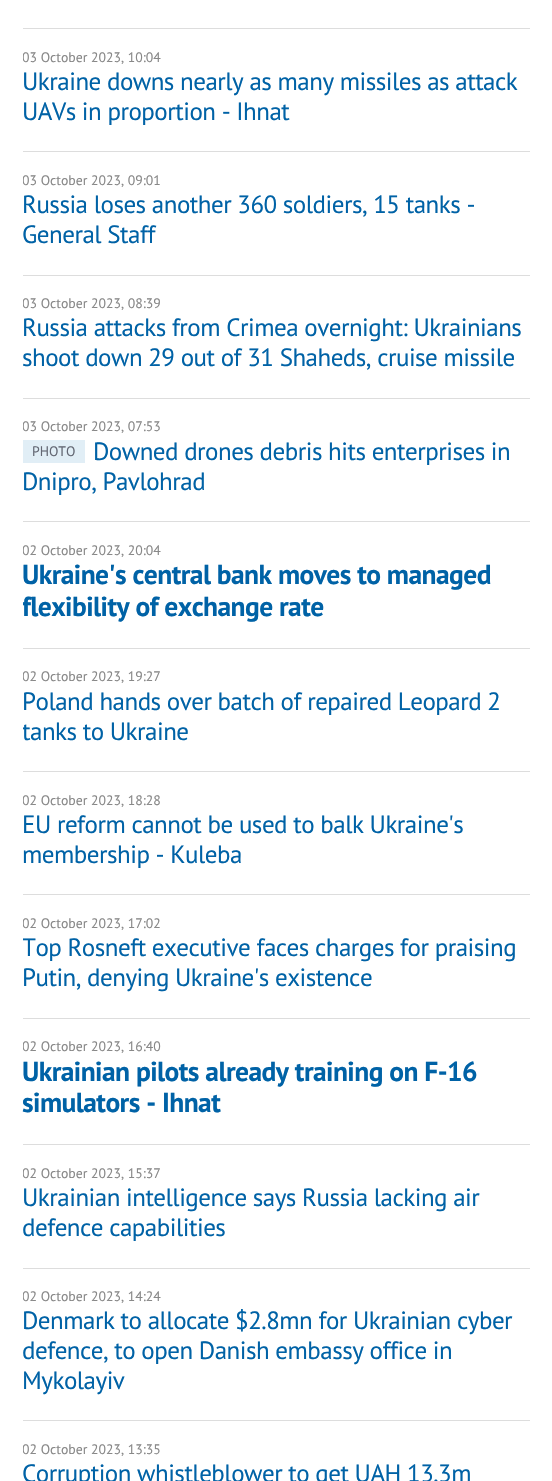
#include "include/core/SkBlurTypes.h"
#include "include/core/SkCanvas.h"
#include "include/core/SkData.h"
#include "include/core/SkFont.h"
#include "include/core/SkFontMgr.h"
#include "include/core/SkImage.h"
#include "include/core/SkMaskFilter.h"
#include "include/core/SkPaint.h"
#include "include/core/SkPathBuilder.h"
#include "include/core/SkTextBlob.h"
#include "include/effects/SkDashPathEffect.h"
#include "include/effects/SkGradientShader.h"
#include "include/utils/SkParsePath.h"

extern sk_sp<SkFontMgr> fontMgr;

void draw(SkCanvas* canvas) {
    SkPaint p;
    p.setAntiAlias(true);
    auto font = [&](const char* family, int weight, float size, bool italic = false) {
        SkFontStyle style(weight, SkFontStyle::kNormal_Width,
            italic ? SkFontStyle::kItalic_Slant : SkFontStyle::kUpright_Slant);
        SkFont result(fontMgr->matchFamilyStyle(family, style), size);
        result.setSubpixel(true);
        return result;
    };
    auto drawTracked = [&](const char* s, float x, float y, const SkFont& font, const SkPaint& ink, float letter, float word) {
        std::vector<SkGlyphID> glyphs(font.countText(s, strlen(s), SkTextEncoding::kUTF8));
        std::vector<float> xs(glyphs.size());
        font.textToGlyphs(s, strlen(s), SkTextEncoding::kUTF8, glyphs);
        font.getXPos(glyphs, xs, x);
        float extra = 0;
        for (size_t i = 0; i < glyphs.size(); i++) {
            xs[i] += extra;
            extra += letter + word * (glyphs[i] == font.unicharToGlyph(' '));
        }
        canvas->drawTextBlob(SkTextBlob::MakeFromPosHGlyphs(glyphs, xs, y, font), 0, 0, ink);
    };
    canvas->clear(0xFFFFFFFF);
    p.setColor(0xFFDDDDDD);
    canvas->drawRect(SkRect::MakeLTRB(23, 28, 530, 29), p);
    canvas->save();
    canvas->clipRect(SkRect::MakeLTRB(23, 29, 530, 151));
    auto font1 = font("PT Sans", 400, 13.75f);
    p.setColor(0xFF888888);
    canvas->drawString("03 October 2023, 10:04", 22, 62, font1, p);
    canvas->restore();
    auto font2 = font("PT Sans", 400, 25);
    p.setColor(0xFF0062A6);
    drawTracked("Ukraine downs nearly as many missiles as attack", 22, 90, font2, p, -0.5f, 0);
    drawTracked("UAVs in proportion - Ihnat", 22, 120, font2, p, -0.5f, 0);
    p.setColor(0xFFDDDDDD);
    canvas->drawRect(SkRect::MakeLTRB(23, 151, 530, 152), p);
    canvas->save();
    canvas->clipRect(SkRect::MakeLTRB(23, 153, 530, 275));
    p.setColor(0xFF888888);
    canvas->drawString("03 October 2023, 09:01", 22, 185, font1, p);
    canvas->restore();
    p.setColor(0xFF0062A6);
    drawTracked("Russia loses another 360 soldiers, 15 tanks -", 22, 213, font2, p, -0.5f, 0);
    drawTracked("General Staff", 22, 243, font2, p, -0.5f, 0);
    p.setColor(0xFFDDDDDD);
    canvas->drawRect(SkRect::MakeLTRB(23, 275, 530, 276), p);
    canvas->save();
    canvas->clipRect(SkRect::MakeLTRB(23, 276, 530, 398));
    p.setColor(0xFF888888);
    canvas->drawString("03 October 2023, 08:39", 22, 308, font1, p);
    canvas->restore();
    p.setColor(0xFF0062A6);
    drawTracked("Russia attacks from Crimea overnight: Ukrainians", 22, 336, font2, p, -0.5f, 0);
    drawTracked("shoot down 29 out of 31 Shaheds, cruise missile", 22, 366, font2, p, -0.5f, 0);
    p.setColor(0xFFDDDDDD);
    canvas->drawRect(SkRect::MakeLTRB(23, 398, 530, 399), p);
    canvas->save();
    canvas->clipRect(SkRect::MakeLTRB(23, 399, 530, 521));
    p.setColor(0xFF888888);
    canvas->drawString("03 October 2023, 07:53", 22, 431, font1, p);
    canvas->restore();
    p.setColor(0xFFE1EEF6);
    canvas->drawRect(SkRect::MakeLTRB(23, 440, 85, 463), p);
    p.setColor(0xFF636773);
    canvas->drawString("PHOTO", 32, 456, font1, p);
    p.setColor(0xFF0062A6);
    drawTracked("Downed drones debris hits enterprises in", 93, 460, font2, p, -0.5f, 0);
    drawTracked("Dnipro, Pavlohrad", 22, 490, font2, p, -0.5f, 0);
    p.setColor(0xFFDDDDDD);
    canvas->drawRect(SkRect::MakeLTRB(23, 521, 530, 522), p);
    canvas->save();
    canvas->clipRect(SkRect::MakeLTRB(23, 523, 530, 648));
    p.setColor(0xFF888888);
    canvas->drawString("02 October 2023, 20:04", 22, 555, font1, p);
    canvas->restore();
    auto font3 = font("PT Sans", 700, 27.5f);
    p.setColor(0xFF0062A6);
    drawTracked("Ukraine's central bank moves to managed", 22, 584, font3, p, -0.55f, 0);
    canvas->save();
    canvas->clipRect(SkRect::MakeLTRB(23, 523, 530, 648));
    drawTracked("flexibility of exchange rate", 22, 616, font3, p, -0.55f, 0);
    canvas->restore();
    p.setColor(0xFFDDDDDD);
    canvas->drawRect(SkRect::MakeLTRB(23, 648, 530, 649), p);
    canvas->save();
    canvas->clipRect(SkRect::MakeLTRB(23, 649, 530, 771));
    p.setColor(0xFF888888);
    canvas->drawString("02 October 2023, 19:27", 22, 681, font1, p);
    canvas->restore();
    p.setColor(0xFF0062A6);
    drawTracked("Poland hands over batch of repaired Leopard 2", 22, 710, font2, p, -0.5f, 0);
    canvas->save();
    canvas->clipRect(SkRect::MakeLTRB(23, 649, 530, 771));
    drawTracked("tanks to Ukraine", 22, 740, font2, p, -0.5f, 0);
    canvas->restore();
    p.setColor(0xFFDDDDDD);
    canvas->drawRect(SkRect::MakeLTRB(23, 771, 530, 772), p);
    canvas->save();
    canvas->clipRect(SkRect::MakeLTRB(23, 773, 530, 894));
    p.setColor(0xFF888888);
    canvas->drawString("02 October 2023, 18:28", 22, 805, font1, p);
    canvas->restore();
    p.setColor(0xFF0062A6);
    drawTracked("EU reform cannot be used to balk Ukraine's", 22, 833, font2, p, -0.5f, 0);
    drawTracked("membership - Kuleba", 22, 863, font2, p, -0.5f, 0);
    p.setColor(0xFFDDDDDD);
    canvas->drawRect(SkRect::MakeLTRB(23, 894, 530, 895), p);
    canvas->save();
    canvas->clipRect(SkRect::MakeLTRB(23, 895, 530, 1018));
    p.setColor(0xFF888888);
    canvas->drawString("02 October 2023, 17:02", 22, 928, font1, p);
    p.setColor(0xFF0062A6);
    drawTracked("Top Rosneft executive faces charges for praising", 22, 956, font2, p, -0.5f, 0);
    canvas->restore();
    drawTracked("Putin, denying Ukraine's existence", 22, 986, font2, p, -0.5f, 0);
    p.setColor(0xFFDDDDDD);
    canvas->drawRect(SkRect::MakeLTRB(23, 1018, 530, 1019), p);
    canvas->save();
    canvas->clipRect(SkRect::MakeLTRB(23, 1019, 530, 1144));
    p.setColor(0xFF888888);
    canvas->drawString("02 October 2023, 16:40", 22, 1051, font1, p);
    canvas->restore();
    p.setColor(0xFF0062A6);
    drawTracked("Ukrainian pilots already training on F-16", 22, 1081, font3, p, -0.55f, 0);
    drawTracked("simulators - Ihnat", 22, 1112, font3, p, -0.55f, 0);
    p.setColor(0xFFDDDDDD);
    canvas->drawRect(SkRect::MakeLTRB(23, 1144, 530, 1145), p);
    canvas->save();
    canvas->clipRect(SkRect::MakeLTRB(23, 1145, 530, 1268));
    p.setColor(0xFF888888);
    canvas->drawString("02 October 2023, 15:37", 22, 1178, font1, p);
    canvas->restore();
    p.setColor(0xFF0062A6);
    drawTracked("Ukrainian intelligence says Russia lacking air", 22, 1206, font2, p, -0.5f, 0);
    drawTracked("defence capabilities", 22, 1236, font2, p, -0.5f, 0);
    p.setColor(0xFFDDDDDD);
    canvas->drawRect(SkRect::MakeLTRB(23, 1268, 530, 1269), p);
    canvas->save();
    canvas->clipRect(SkRect::MakeLTRB(23, 1269, 530, 1420));
    p.setColor(0xFF888888);
    canvas->drawString("02 October 2023, 14:24", 22, 1301, font1, p);
    canvas->restore();
    p.setColor(0xFF0062A6);
    {
        const struct { const char* s; float x, y; } items[] = {
            {"Denmark to allocate $2.8mn for Ukrainian cyber", 22, 1329},
            {"defence, to open Danish embassy office in", 22, 1359},
            {"Mykolayiv", 22, 1389},
        };
        for (auto [s, x, y] : items) {
            drawTracked(s, x, y, font2, p, -0.5f, 0);
        }
    }
    p.setColor(0xFFDDDDDD);
    canvas->drawRect(SkRect::MakeLTRB(23, 1420, 530, 1421), p);
    canvas->save();
    canvas->clipRect(SkRect::MakeLTRB(23, 1421, 530, 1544));
    p.setColor(0xFF888888);
    canvas->drawString("02 October 2023, 13:35", 22, 1454, font1, p);
    canvas->restore();
    p.setColor(0xFF0062A6);
    drawTracked("Corruption whistleblower to get UAH 13.3m", 22, 1482, font2, p, -0.5f, 0);
}
